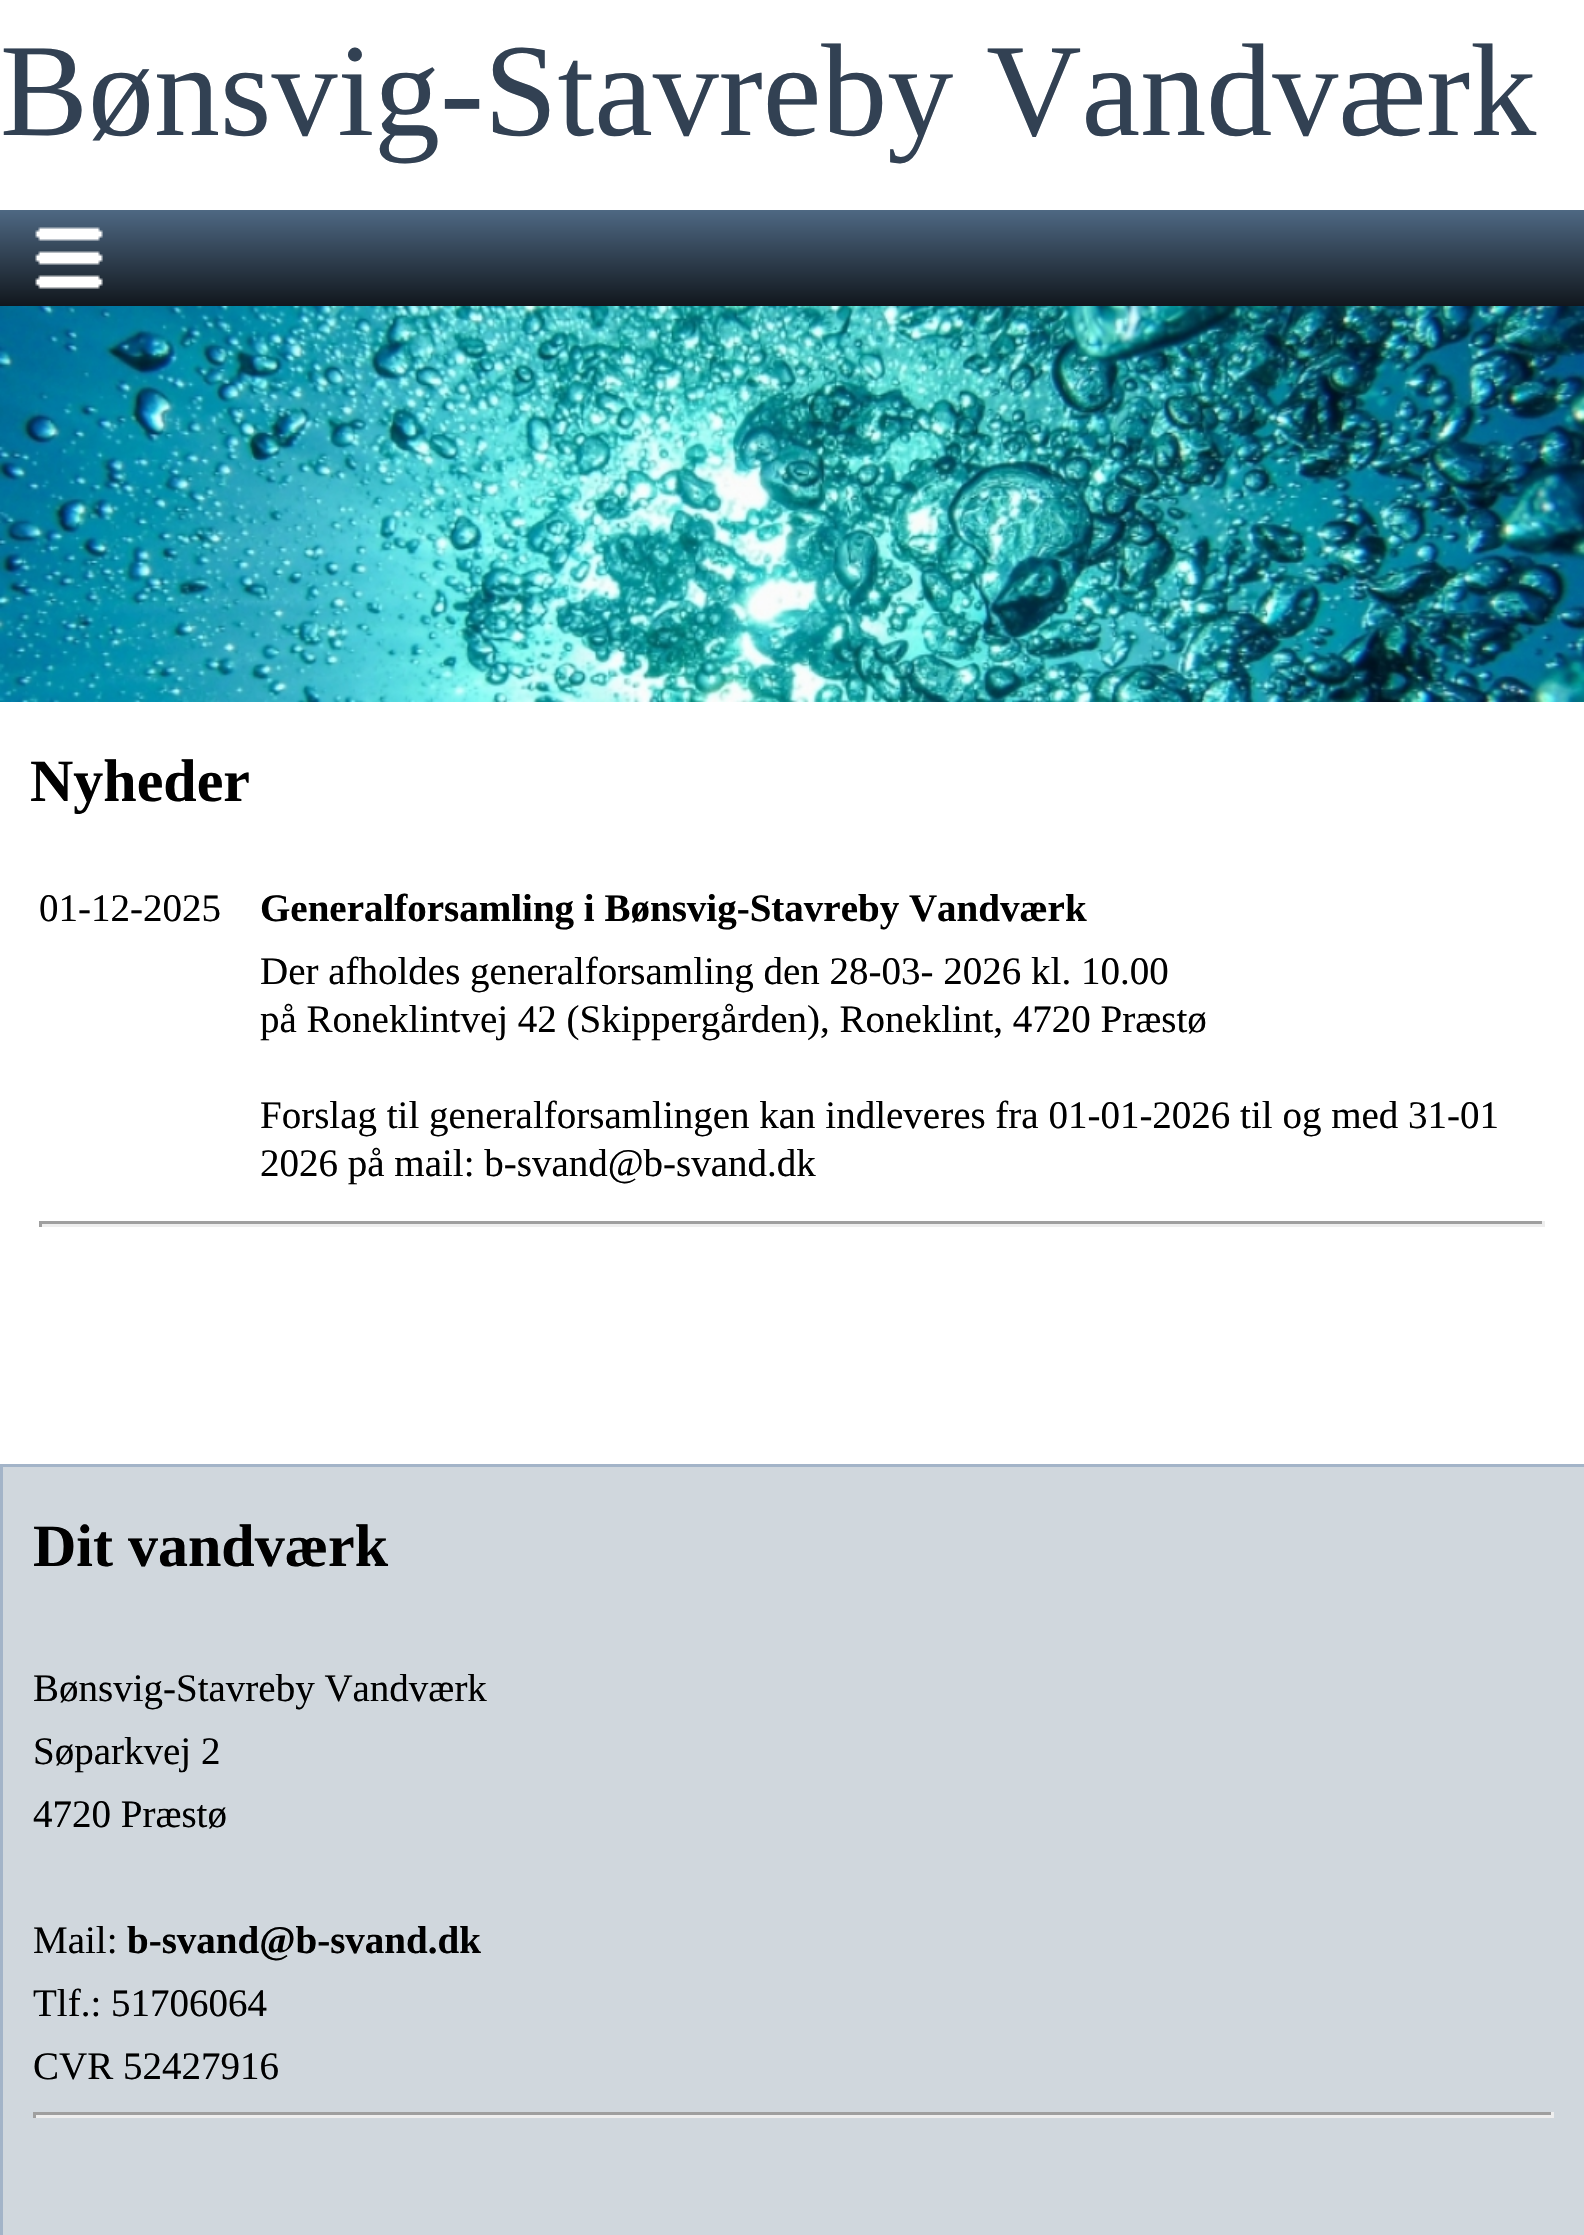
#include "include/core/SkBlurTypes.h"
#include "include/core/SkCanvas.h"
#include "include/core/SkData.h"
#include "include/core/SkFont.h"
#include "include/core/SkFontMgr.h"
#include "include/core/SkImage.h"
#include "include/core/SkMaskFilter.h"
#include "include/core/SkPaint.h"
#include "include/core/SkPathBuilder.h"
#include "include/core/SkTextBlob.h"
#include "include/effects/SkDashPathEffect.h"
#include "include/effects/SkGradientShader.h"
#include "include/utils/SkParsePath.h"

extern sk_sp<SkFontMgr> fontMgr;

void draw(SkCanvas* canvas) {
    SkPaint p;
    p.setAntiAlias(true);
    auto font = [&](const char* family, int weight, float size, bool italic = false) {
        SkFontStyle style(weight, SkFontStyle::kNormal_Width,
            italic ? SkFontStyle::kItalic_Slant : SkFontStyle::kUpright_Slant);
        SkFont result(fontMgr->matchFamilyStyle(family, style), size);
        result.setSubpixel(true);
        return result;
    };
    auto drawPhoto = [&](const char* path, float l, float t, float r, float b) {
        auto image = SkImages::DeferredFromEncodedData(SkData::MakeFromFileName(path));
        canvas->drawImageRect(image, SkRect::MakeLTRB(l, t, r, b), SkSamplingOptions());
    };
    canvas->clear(0xFFFFFFFF);
    auto font1 = font("Liberation Serif", 400, 132);
    p.setColor(0xFF324153);
    canvas->drawString("Bønsvig-Stavreby Vandværk", 0, 135, font1, p);
    {
        const SkColor colors[] = {0xFF4E6883, 0xFF11171D};
        const float stops[] = {0, 1};
        const SkPoint ends[] = {{792, 210}, {792, 306}};
        p.setShader(SkGradientShader::MakeLinear(ends, colors, stops, 2, SkTileMode::kClamp));
        p.setAlpha(255);
    }
    canvas->drawRect(SkRect::MakeLTRB(0, 210, 1584, 306), p);
    drawPhoto("media/1.png", 35, 227, 103, 289);
    drawPhoto("media/2.png", 0, 306, 1584, 702);
    auto font2 = font("Liberation Serif", 700, 60);
    p.setShader(nullptr);
    p.setColor(0xFF000000);
    canvas->drawString("Nyheder", 30, 801, font2, p);
    auto font3 = font("Liberation Serif", 400, 39);
    canvas->drawString("01-12-2025", 39, 921, font3, p);
    auto font4 = font("Liberation Serif", 700, 39);
    canvas->drawString("Generalforsamling i Bønsvig-Stavreby Vandværk", 260, 921, font4, p);
    {
        const struct { const char* s; float x, y; } items[] = {
            {"Der afholdes generalforsamling den 28-03- 2026 kl. 10.00", 260, 984},
            {"på Roneklintvej 42 (Skippergården), Roneklint, 4720 Præstø", 260, 1032},
            {"Forslag til generalforsamlingen kan indleveres fra 01-01-2026 til og med 31-01", 260, 1128},
            {"2026 på mail: b-svand@b-svand.dk", 260, 1176},
        };
        for (auto [s, x, y] : items) {
            canvas->drawString(s, x, y, font3, p);
        }
    }
    {
        const struct { float l, t, r, b; SkColor color; } items[] = {
            {39, 1221, 1545, 1224, 0xFF9F9F9F},
            {1542, 1221, 1545, 1227, 0xFFEEEEEE},
            {39, 1224, 1545, 1227, 0xFFEEEEEE},
            {39, 1221, 42, 1227, 0xFF9F9F9F},
            {3, 1467, 1584, 2235, 0xFFD0D7DD},
            {0, 1464, 1584, 1467, 0xFFA3B4C8},
            {0, 1464, 3, 2235, 0xFFA3B4C8},
        };
        for (auto [l, t, r, b, color] : items) {
            p.setColor(color);
            canvas->drawRect(SkRect::MakeLTRB(l, t, r, b), p);
        }
    }
    p.setColor(0xFF000000);
    canvas->drawString("Dit vandværk", 33, 1566, font2, p);
    {
        const struct { const char* s; float x, y; } items[] = {
            {"Bønsvig-Stavreby Vandværk", 33, 1701},
            {"Søparkvej 2", 33, 1764},
            {"4720 Præstø", 33, 1827},
            {"Mail:", 33, 1953},
        };
        for (auto [s, x, y] : items) {
            canvas->drawString(s, x, y, font3, p);
        }
    }
    canvas->drawString("b-svand@b-svand.dk", 127, 1953, font4, p);
    canvas->drawString("Tlf.: 51706064", 33, 2016, font3, p);
    canvas->drawString("CVR 52427916", 33, 2079, font3, p);
    {
        const struct { float l, t, r, b; SkColor color; } items[] = {
            {33, 2112, 1554, 2115, 0xFF9F9F9F},
            {1551, 2112, 1554, 2118, 0xFFEEEEEE},
            {33, 2115, 1554, 2118, 0xFFEEEEEE},
            {33, 2112, 36, 2118, 0xFF9F9F9F},
        };
        for (auto [l, t, r, b, color] : items) {
            p.setColor(color);
            canvas->drawRect(SkRect::MakeLTRB(l, t, r, b), p);
        }
    }
}
